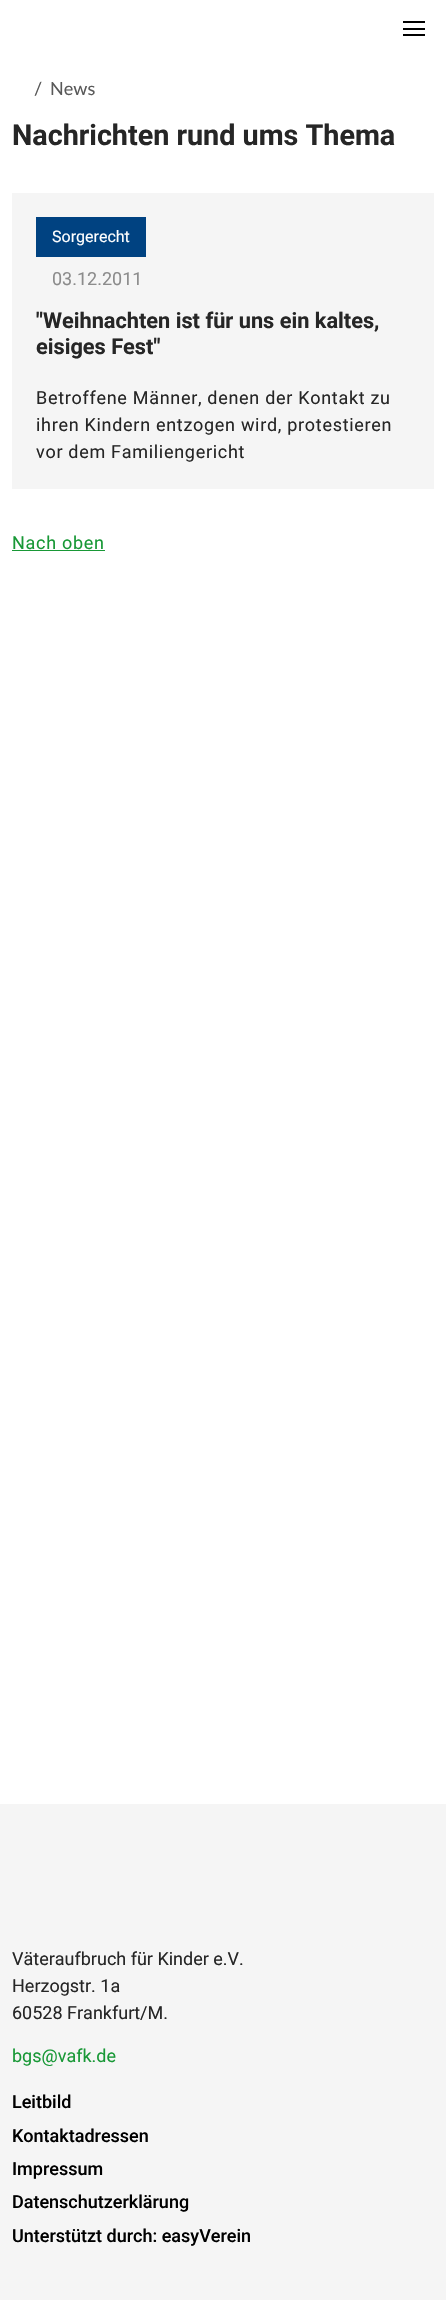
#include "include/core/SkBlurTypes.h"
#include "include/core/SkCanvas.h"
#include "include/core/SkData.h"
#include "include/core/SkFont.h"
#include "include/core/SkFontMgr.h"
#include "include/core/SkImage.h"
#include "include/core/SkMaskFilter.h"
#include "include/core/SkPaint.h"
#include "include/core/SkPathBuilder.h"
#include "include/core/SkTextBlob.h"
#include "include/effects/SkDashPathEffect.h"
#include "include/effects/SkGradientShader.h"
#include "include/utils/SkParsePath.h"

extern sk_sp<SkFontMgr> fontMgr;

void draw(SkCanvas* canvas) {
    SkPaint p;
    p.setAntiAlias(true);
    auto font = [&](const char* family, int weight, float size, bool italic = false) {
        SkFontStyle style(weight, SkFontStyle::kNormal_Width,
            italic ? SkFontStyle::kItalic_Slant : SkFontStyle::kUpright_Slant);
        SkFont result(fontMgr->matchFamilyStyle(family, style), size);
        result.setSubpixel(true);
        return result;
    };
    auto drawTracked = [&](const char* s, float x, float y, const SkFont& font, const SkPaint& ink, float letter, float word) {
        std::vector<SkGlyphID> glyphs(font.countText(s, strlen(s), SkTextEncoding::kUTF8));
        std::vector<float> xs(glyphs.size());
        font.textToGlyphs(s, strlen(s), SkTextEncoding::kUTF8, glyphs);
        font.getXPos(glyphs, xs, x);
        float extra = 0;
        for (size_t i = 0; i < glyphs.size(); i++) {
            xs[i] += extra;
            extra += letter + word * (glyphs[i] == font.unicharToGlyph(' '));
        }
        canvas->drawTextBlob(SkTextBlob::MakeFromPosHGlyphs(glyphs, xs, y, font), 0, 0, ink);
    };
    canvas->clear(0xFFFFFFFF);
    {
        const struct { float l, t, r, b; SkColor color; } items[] = {
            {403, 28, 425, 30, 0xFF000000},
            {403, 21, 425, 23, 0xFF000000},
            {403, 34, 425, 36, 0xFF000000},
        };
        for (auto [l, t, r, b, color] : items) {
            p.setColor(color);
            canvas->drawRect(SkRect::MakeLTRB(l, t, r, b), p);
        }
    }
    auto font1 = font("Lato", 400, 18);
    p.setColor(0xFF595959);
    canvas->drawString("/", 34, 95, font1, p);
    canvas->drawString("News", 50, 95, font1, p);
    auto font2 = font("Roboto", 700, 28.75f);
    p.setColor(0xFF262626);
    canvas->drawString("Nachrichten rund ums Thema", 12, 145, font2, p);
    p.setColor(0xFFF5F5F5);
    canvas->drawRect(SkRect::MakeLTRB(12, 193, 434, 489), p);
    p.setColor(0xFF004281);
    canvas->drawRect(SkRect::MakeLTRB(36, 217, 146, 257), p);
    auto font3 = font("Roboto", 400, 16);
    p.setColor(0xFFFFFFFF);
    canvas->drawString("Sorgerecht", 52, 242, font3, p);
    auto font4 = font("Roboto", 400, 18);
    p.setColor(0xFF8C8C8C);
    canvas->drawString("03.12.2011", 52, 285, font4, p);
    auto font5 = font("Roboto", 700, 21.75f);
    p.setColor(0xFF262626);
    canvas->drawString("\"Weihnachten ist für uns ein kaltes,", 36, 328, font5, p);
    canvas->drawString("eisiges Fest\"", 36, 354, font5, p);
    {
        const struct { const char* s; float x, y; } items[] = {
            {"Betroffene Männer, denen der Kontakt zu", 36, 404},
            {"ihren Kindern entzogen wird, protestieren", 36, 431},
            {"vor dem Familiengericht", 36, 458},
        };
        for (auto [s, x, y] : items) {
            drawTracked(s, x, y, font4, p, 0.7f, 0);
        }
    }
    p.setColor(0xFF189836);
    drawTracked("Nach oben", 12, 549, font4, p, 0.7f, 0);
    canvas->drawRect(SkRect::MakeLTRB(12, 550, 105, 551), p);
    p.setColor(0xFFF5F5F5);
    canvas->drawRect(SkRect::MakeLTRB(0, 1804, 446, 2300), p);
    p.setColor(0xFF262626);
    {
        const struct { const char* s; float x, y; } items[] = {
            {"Väteraufbruch für Kinder e.V.", 12, 1965},
            {"Herzogstr. 1a", 12, 1992},
            {"60528 Frankfurt/M.", 12, 2019},
        };
        for (auto [s, x, y] : items) {
            canvas->drawString(s, x, y, font4, p);
        }
    }
    p.setColor(0xFF189836);
    canvas->drawString("bgs@vafk.de", 12, 2062, font4, p);
    auto font6 = font("Roboto", 500, 18);
    p.setColor(0xFF000000);
    {
        const struct { const char* s; float x, y; } items[] = {
            {"Leitbild", 12, 2108},
            {"Kontaktadressen", 12, 2142},
            {"Impressum", 12, 2175},
            {"Datenschutzerklärung", 12, 2208},
            {"Unterstützt durch: easyVerein", 12, 2242},
        };
        for (auto [s, x, y] : items) {
            canvas->drawString(s, x, y, font6, p);
        }
    }
}
